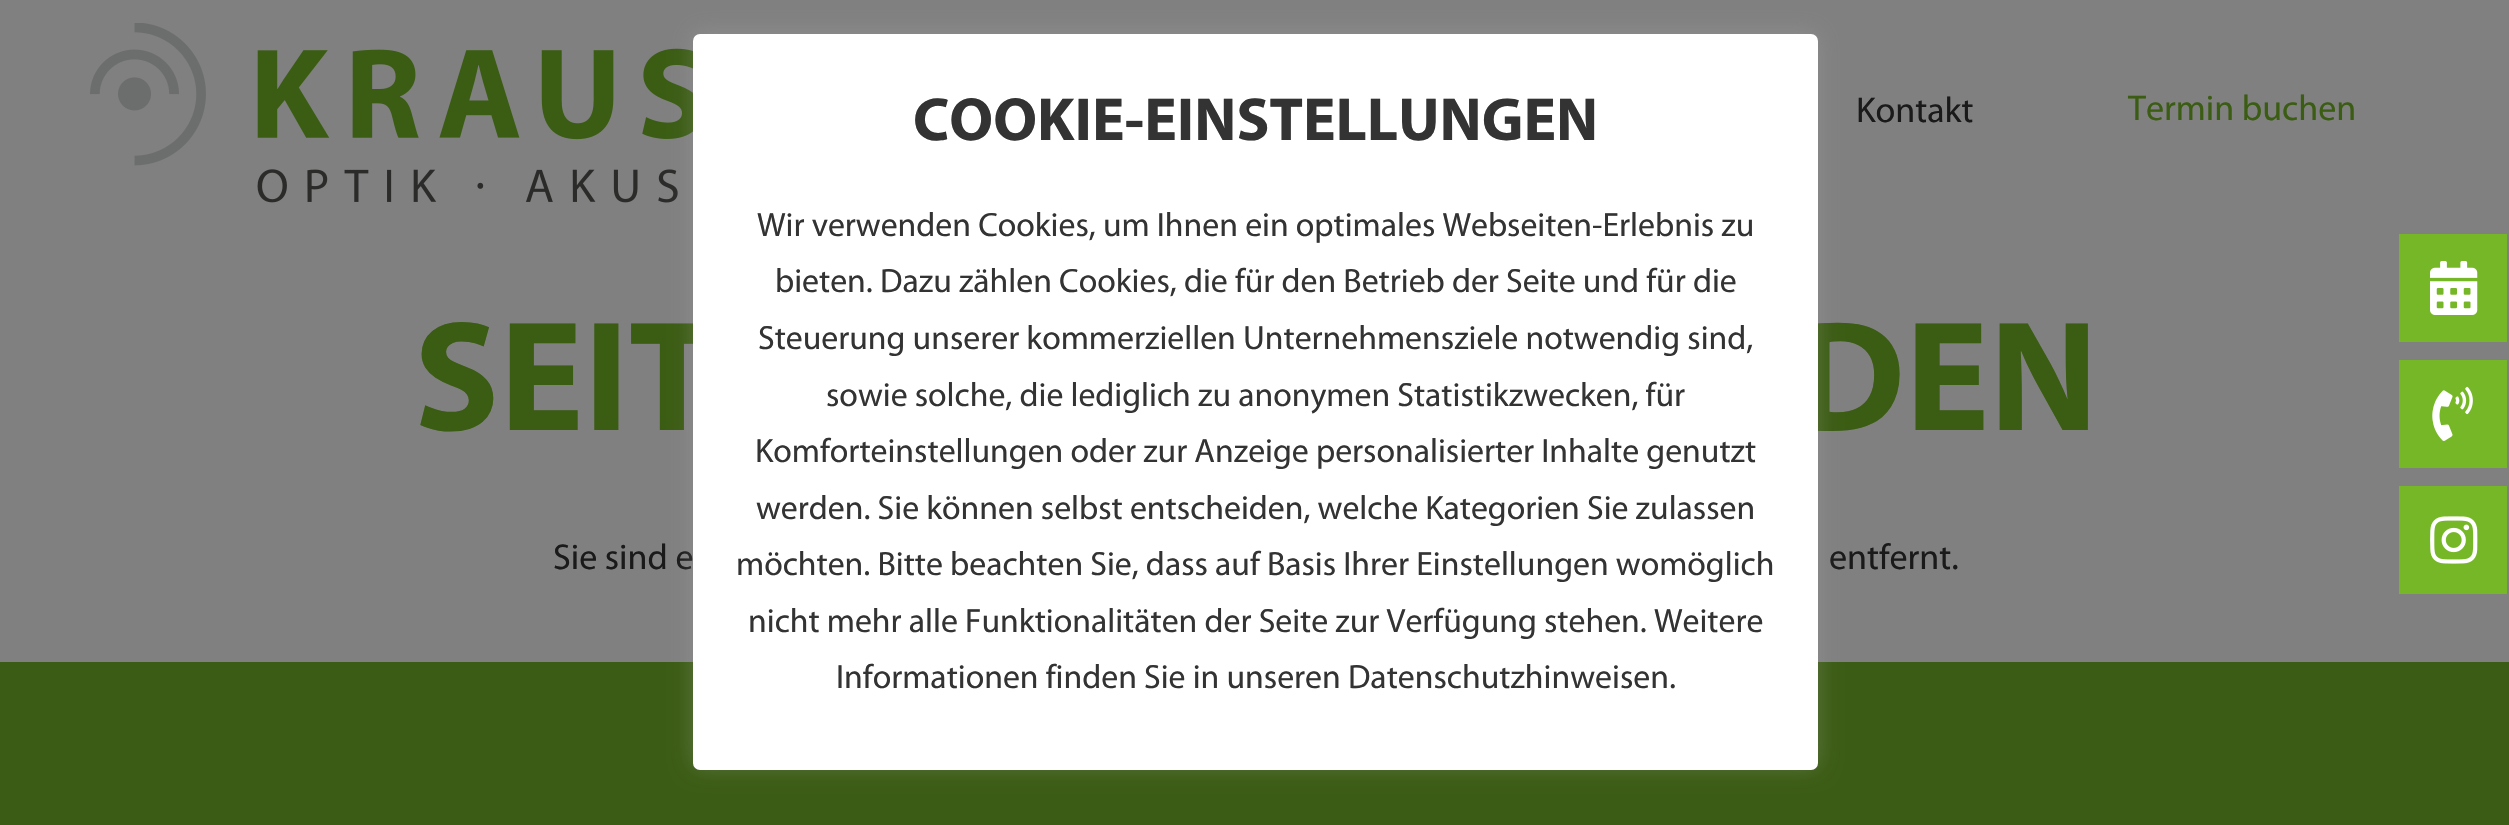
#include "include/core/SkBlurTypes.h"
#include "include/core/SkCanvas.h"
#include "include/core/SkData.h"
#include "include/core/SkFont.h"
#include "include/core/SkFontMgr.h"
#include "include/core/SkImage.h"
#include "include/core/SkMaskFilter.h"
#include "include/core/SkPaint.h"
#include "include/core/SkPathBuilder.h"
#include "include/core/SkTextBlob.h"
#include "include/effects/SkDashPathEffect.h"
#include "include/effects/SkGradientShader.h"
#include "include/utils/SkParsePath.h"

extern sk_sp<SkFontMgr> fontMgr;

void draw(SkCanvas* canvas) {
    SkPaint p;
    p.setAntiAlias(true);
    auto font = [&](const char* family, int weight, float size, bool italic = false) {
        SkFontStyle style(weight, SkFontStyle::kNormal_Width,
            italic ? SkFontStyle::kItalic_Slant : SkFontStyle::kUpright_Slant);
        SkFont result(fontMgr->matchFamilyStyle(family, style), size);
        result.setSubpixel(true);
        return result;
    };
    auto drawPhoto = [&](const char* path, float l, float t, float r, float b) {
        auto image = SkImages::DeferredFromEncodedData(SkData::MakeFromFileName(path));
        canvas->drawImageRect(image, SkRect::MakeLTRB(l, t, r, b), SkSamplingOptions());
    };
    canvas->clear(0xFF808080);
    drawPhoto("media/1.png", 90, 23, 693, 203);
    auto font1 = font("Myriad", 400, 36);
    p.setColor(0xFF1A1A1A);
    canvas->drawString("Kontakt", 1856, 122, font1, p);
    p.setColor(0xFF3B5C13);
    canvas->drawString("Termin buchen", 2128, 120, font1, p);
    auto font2 = font("Myriad", 700, 158);
    canvas->drawString("SEIT", 414, 430, font2, p);
    canvas->drawString("DEN", 1795, 430, font2, p);
    p.setColor(0xFF1A1A1A);
    canvas->drawString("Sie sind e", 553, 569, font1, p);
    canvas->drawString("entfernt.", 1829, 569, font1, p);
    p.setColor(0xFF3B5C14);
    canvas->drawRect(SkRect::MakeLTRB(0, 662, 2509, 825), p);
    p.setColor(0x4DACABAB);
    p.setMaskFilter(SkMaskFilter::MakeBlur(kNormal_SkBlurStyle, 11));
    canvas->drawRoundRect(SkRect::MakeLTRB(693, 32, 1818, 767), 7, 7, p);
    p.setMaskFilter(nullptr);
    p.setColor(0xFFFFFFFF);
    canvas->drawRoundRect(SkRect::MakeLTRB(693, 34, 1818, 770), 7, 7, p);
    auto font3 = font("Myriad", 700, 61.1f);
    p.setColor(0xFF333333);
    canvas->drawString("COOKIE-EINSTELLUNGEN", 913, 140, font3, p);
    auto font4 = font("Myriad", 400, 33.75f);
    {
        const struct { const char* s; float x, y; } items[] = {
            {"Wir verwenden Cookies, um Ihnen ein optimales Webseiten-Erlebnis zu", 757, 236},
            {"bieten. Dazu zählen Cookies, die für den Betrieb der Seite und für die", 775, 292},
            {"Steuerung unserer kommerziellen Unternehmensziele notwendig sind,", 758, 349},
            {"sowie solche, die lediglich zu anonymen Statistikzwecken, für", 826, 406},
            {"Komforteinstellungen oder zur Anzeige personalisierter Inhalte genutzt", 755, 462},
            {"werden. Sie können selbst entscheiden, welche Kategorien Sie zulassen", 756, 519},
            {"möchten. Bitte beachten Sie, dass auf Basis Ihrer Einstellungen womöglich", 736, 575},
            {"nicht mehr alle Funktionalitäten der Seite zur Verfügung stehen. Weitere", 748, 632},
            {"Informationen finden Sie in unseren Datenschutzhinweisen.", 836, 688},
        };
        for (auto [s, x, y] : items) {
            canvas->drawString(s, x, y, font4, p);
        }
    }
    p.setColor(0xFF75B726);
    canvas->drawRect(SkRect::MakeLTRB(2399, 234, 2507, 342), p);
    drawPhoto("media/2.png", 2430, 261, 2478, 315);
    canvas->drawRect(SkRect::MakeLTRB(2399, 360, 2507, 468), p);
    drawPhoto("media/3.png", 2432, 386, 2473, 441);
    canvas->drawRect(SkRect::MakeLTRB(2399, 486, 2507, 594), p);
    drawPhoto("media/4.png", 2430, 516, 2478, 564);
}
